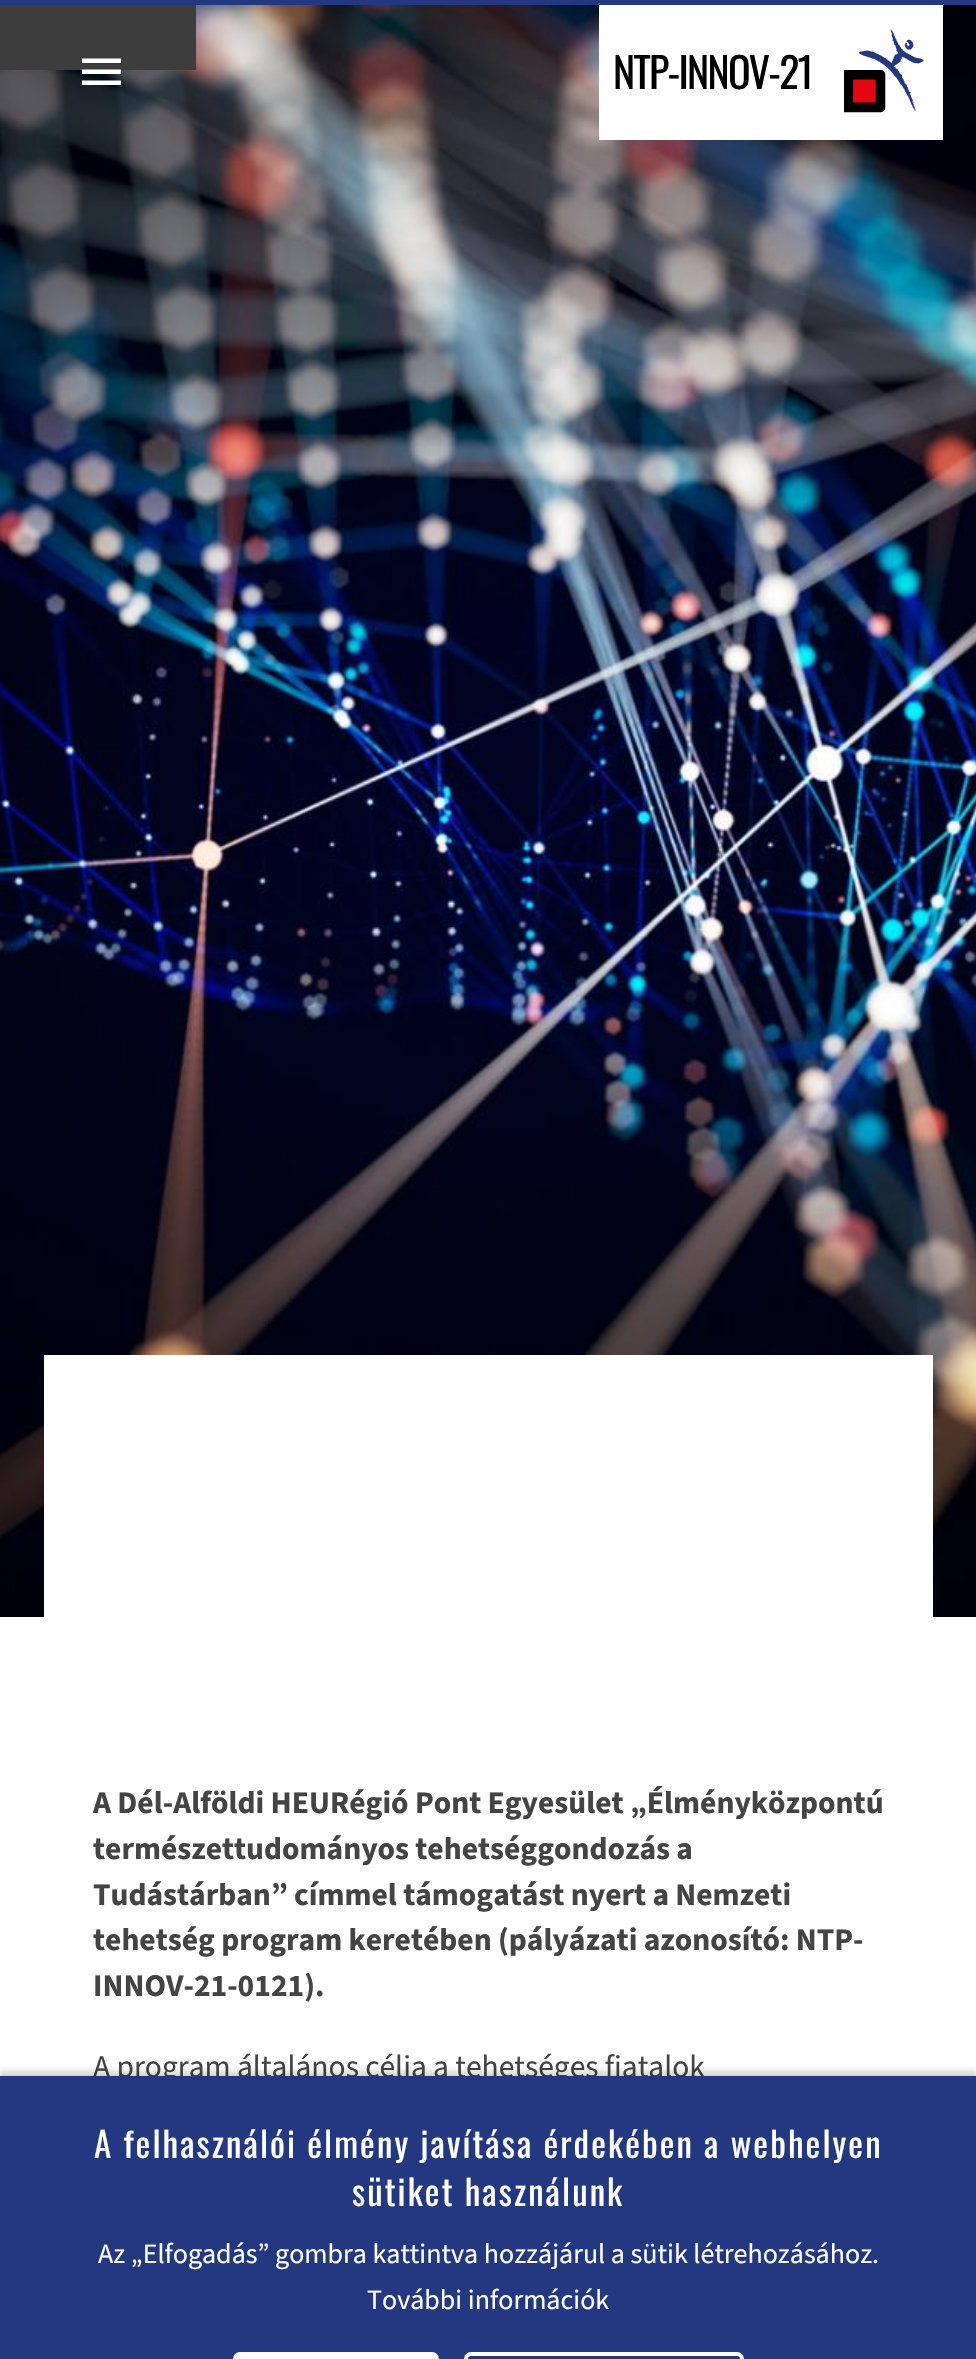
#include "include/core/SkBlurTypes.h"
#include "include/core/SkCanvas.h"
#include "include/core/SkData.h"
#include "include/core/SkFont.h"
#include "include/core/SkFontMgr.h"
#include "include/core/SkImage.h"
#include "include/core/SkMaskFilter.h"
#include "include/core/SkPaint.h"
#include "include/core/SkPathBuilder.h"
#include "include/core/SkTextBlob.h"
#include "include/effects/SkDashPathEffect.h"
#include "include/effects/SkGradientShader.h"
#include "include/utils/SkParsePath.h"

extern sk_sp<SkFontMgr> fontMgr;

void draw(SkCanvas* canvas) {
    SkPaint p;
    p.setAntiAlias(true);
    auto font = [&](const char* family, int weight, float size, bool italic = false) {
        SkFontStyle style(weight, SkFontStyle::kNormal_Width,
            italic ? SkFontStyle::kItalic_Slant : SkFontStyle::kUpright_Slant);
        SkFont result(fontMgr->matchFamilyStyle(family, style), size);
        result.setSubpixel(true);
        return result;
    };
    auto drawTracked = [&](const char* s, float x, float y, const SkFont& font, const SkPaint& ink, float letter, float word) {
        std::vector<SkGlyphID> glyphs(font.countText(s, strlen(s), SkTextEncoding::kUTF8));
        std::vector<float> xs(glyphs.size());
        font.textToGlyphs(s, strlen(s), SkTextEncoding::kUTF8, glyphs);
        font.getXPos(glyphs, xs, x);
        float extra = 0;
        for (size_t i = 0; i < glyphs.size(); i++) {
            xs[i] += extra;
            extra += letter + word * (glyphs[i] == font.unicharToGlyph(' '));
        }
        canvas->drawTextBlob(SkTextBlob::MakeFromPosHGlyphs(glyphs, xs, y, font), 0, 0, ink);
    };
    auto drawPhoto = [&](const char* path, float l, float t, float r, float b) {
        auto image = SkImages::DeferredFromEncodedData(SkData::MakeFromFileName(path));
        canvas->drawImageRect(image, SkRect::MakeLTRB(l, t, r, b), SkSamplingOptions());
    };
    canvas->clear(0xFFFFFFFF);
    p.setColor(0xFF243882);
    canvas->drawRect(SkRect::MakeLTRB(0, 0, 976, 5), p);
    drawPhoto("media/1.png", 0, 5, 976, 1617);
    p.setColor(0xFF3D3D3D);
    canvas->drawRect(SkRect::MakeLTRB(0, 5, 196, 70), p);
    p.setColor(0xFFFFFFFF);
    canvas->drawPath(SkPathBuilder().moveTo(82, 85).lineTo(121, 85).lineTo(121, 80.5f).lineTo(82, 80.5f).close().moveTo(82, 74).lineTo(121, 74).lineTo(121, 69.5f).lineTo(82, 69.5f).close().moveTo(82, 58.5f).lineTo(82, 63).lineTo(121, 63).lineTo(121, 58.5f).close().detach(), p);
    canvas->drawRect(SkRect::MakeLTRB(599, 5, 943, 140), p);
    auto font1 = font("Oswald", 400, 42);
    p.setColor(0xFF000000);
    drawTracked("NTP-INNOV-21", 613, 89, font1, p, -1.75f, 0);
    drawPhoto("media/2.png", 844, 29, 924, 113);
    p.setColor(0xFFFFFFFF);
    canvas->drawRect(SkRect::MakeLTRB(44, 1355, 933, 1617), p);
    auto font2 = font("Source Sans 3", 700, 31.5f);
    p.setColor(0xFF444444);
    {
        const struct { const char* s; float x, y; } items[] = {
            {"A Dél-Alföldi HEURégió Pont Egyesület „Élményközpontú", 93, 1813},
            {"természettudományos tehetséggondozás a", 93, 1859},
            {"Tudástárban” címmel támogatást nyert a Nemzeti", 93, 1905},
            {"tehetség program keretében (pályázati azonosító: NTP-", 93, 1950},
            {"INNOV-21-0121).", 93, 1996},
        };
        for (auto [s, x, y] : items) {
            canvas->drawString(s, x, y, font2, p);
        }
    }
    auto font3 = font("Source Sans 3", 400, 31.5f);
    canvas->drawString("A program általános célja a tehetséges fiatalok", 93, 2077, font3, p);
    p.setColor(0x3D000000);
    p.setMaskFilter(SkMaskFilter::MakeBlur(kNormal_SkBlurStyle, 2));
    canvas->drawRect(SkRect::MakeLTRB(0, 2077, 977, 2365), p);
    p.setMaskFilter(nullptr);
    p.setColor(0x1F000000);
    p.setMaskFilter(SkMaskFilter::MakeBlur(kNormal_SkBlurStyle, 2.5f));
    canvas->drawRect(SkRect::MakeLTRB(0, 2070, 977, 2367), p);
    p.setMaskFilter(nullptr);
    p.setColor(0xFF243882);
    canvas->drawRect(SkRect::MakeLTRB(0, 2076, 976, 2359), p);
    auto font4 = font("Oswald", 400, 35);
    p.setColor(0xFFFFFFFF);
    drawTracked("A felhasználói élmény javítása érdekében a webhelyen", 94, 2158, font4, p, 2.1f, 0);
    drawTracked("sütiket használunk", 352, 2206, font4, p, 2.1f, 0);
    auto font5 = font("Source Sans 3", 400, 28);
    canvas->drawString("Az „Elfogadás” gombra kattintva hozzájárul a sütik létrehozásához.", 98, 2263, font5, p);
    canvas->drawString("További információk", 367, 2309, font5, p);
    canvas->drawRoundRect(SkRect::MakeLTRB(235, 2354, 437, 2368), 5, 5, p);
    p.setStyle(SkPaint::kStroke_Style);
    p.setStrokeWidth(4);
    canvas->drawRoundRect(SkRect::MakeLTRB(235, 2354, 437, 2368), 5, 5, p);
    canvas->drawRoundRect(SkRect::MakeLTRB(466, 2354, 742, 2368), 5, 5, p);
}
